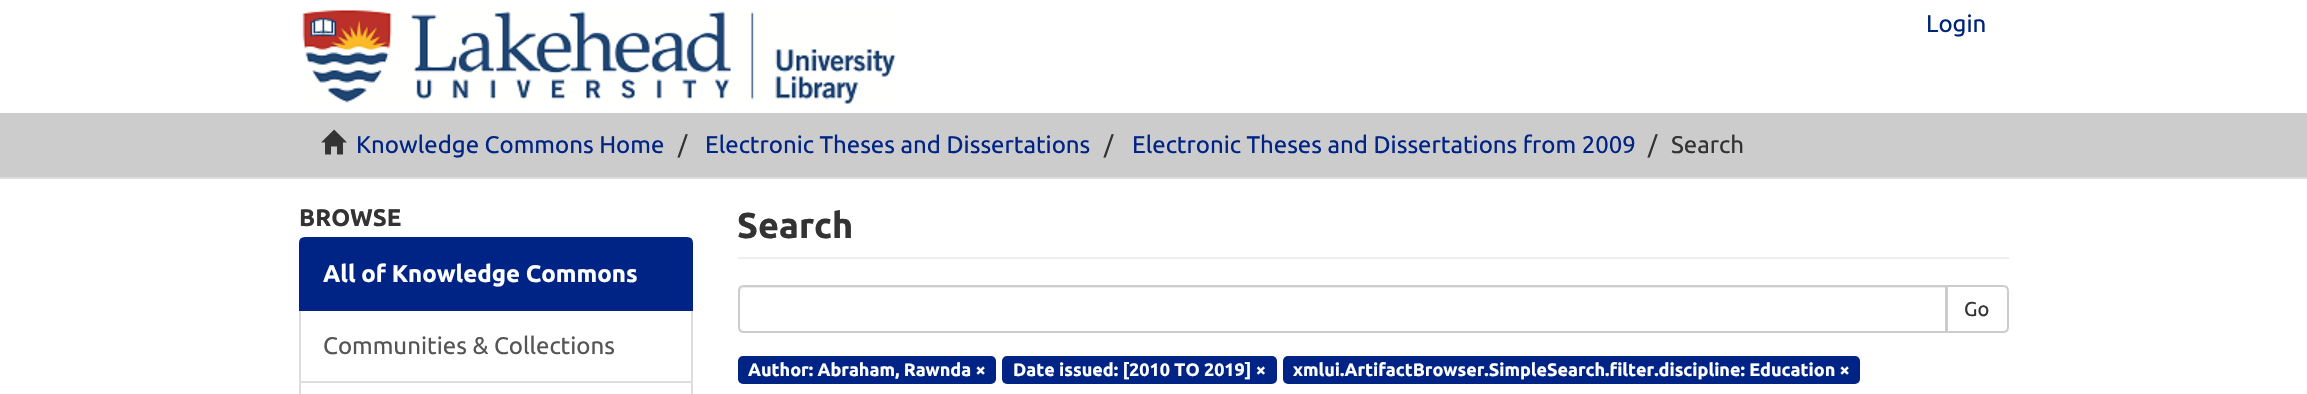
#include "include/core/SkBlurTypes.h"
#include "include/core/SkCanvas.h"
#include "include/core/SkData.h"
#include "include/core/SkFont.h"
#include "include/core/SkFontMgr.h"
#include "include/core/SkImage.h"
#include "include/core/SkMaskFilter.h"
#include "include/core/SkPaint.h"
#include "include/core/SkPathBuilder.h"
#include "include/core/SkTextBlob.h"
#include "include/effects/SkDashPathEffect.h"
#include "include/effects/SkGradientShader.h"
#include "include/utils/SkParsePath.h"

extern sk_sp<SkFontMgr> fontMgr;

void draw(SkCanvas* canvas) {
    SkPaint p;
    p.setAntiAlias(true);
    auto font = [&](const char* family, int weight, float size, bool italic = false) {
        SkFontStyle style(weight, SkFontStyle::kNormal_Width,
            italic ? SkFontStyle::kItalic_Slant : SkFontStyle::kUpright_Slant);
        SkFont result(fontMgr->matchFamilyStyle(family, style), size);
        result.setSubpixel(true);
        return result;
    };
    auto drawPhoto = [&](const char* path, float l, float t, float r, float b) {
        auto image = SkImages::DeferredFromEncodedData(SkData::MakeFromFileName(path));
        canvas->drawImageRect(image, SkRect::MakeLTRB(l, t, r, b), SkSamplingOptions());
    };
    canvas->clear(0xFFFFFFFF);
    drawPhoto("media/1.png", 302, 10, 896, 104);
    auto font1 = font("Ubuntu", 400, 24);
    p.setColor(0xFF00247A);
    canvas->drawString("Login", 1926, 32, font1, p);
    p.setColor(0xFFCCCCCC);
    canvas->drawRect(SkRect::MakeLTRB(0, 113, 2307, 177), p);
    p.setColor(0xFFDDDDDD);
    canvas->drawRect(SkRect::MakeLTRB(0, 177, 2307, 179), p);
    drawPhoto("media/2.png", 321, 129, 347, 155);
    p.setColor(0xFF002485);
    canvas->drawString("Knowledge Commons Home", 356, 153, font1, p);
    p.setColor(0xFF333333);
    canvas->drawString("/", 678, 153, font1, p);
    p.setColor(0xFF002485);
    canvas->drawString("Electronic Theses and Dissertations", 705, 153, font1, p);
    p.setColor(0xFF333333);
    canvas->drawString("/", 1104, 153, font1, p);
    p.setColor(0xFF002485);
    canvas->drawString("Electronic Theses and Dissertations from 2009", 1132, 153, font1, p);
    p.setColor(0xFF333333);
    canvas->drawString("/", 1648, 153, font1, p);
    canvas->drawString("Search", 1671, 153, font1, p);
    auto font2 = font("Ubuntu", 700, 24);
    canvas->drawString("BROWSE", 299, 226, font2, p);
    p.setStyle(SkPaint::kStroke_Style);
    p.setStrokeWidth(2);
    p.setColor(0xFFDDDDDD);
    canvas->drawRect(SkRect::MakeLTRB(300, 310, 692, 382), p);
    p.setStyle(SkPaint::kFill_Style);
    p.setColor(0xFF002485);
    canvas->drawPath(SkPathBuilder().moveTo(305, 238).lineTo(687, 238).cubicTo(690, 238, 692, 240, 692, 243).lineTo(692, 310).lineTo(300, 310).lineTo(300, 243).cubicTo(300, 240, 302, 238, 305, 238).close().detach(), p);
    p.setStyle(SkPaint::kStroke_Style);
    canvas->drawPath(SkPathBuilder().moveTo(305, 238).lineTo(687, 238).cubicTo(690, 238, 692, 240, 692, 243).lineTo(692, 310).lineTo(300, 310).lineTo(300, 243).cubicTo(300, 240, 302, 238, 305, 238).close().detach(), p);
    p.setStyle(SkPaint::kFill_Style);
    p.setColor(0xFFFFFFFF);
    canvas->drawString("All of Knowledge Commons", 323, 282, font2, p);
    p.setColor(0xFF555555);
    canvas->drawString("Communities & Collections", 323, 354, font1, p);
    p.setStyle(SkPaint::kStroke_Style);
    p.setColor(0xFFDDDDDD);
    canvas->drawRect(SkRect::MakeLTRB(300, 382, 692, 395), p);
    p.setStyle(SkPaint::kFill_Style);
    p.setColor(0xFFEEEEEE);
    canvas->drawRect(SkRect::MakeLTRB(738, 257, 2009, 259), p);
    auto font3 = font("Ubuntu", 700, 36);
    p.setColor(0xFF333333);
    canvas->drawString("Search", 737, 238, font3, p);
    p.setStyle(SkPaint::kStroke_Style);
    p.setColor(0xFFCCCCCC);
    canvas->drawPath(SkPathBuilder().moveTo(1947, 286).lineTo(2003, 286).cubicTo(2006, 286, 2008, 288, 2008, 291).lineTo(2008, 327).cubicTo(2008, 330, 2006, 332, 2003, 332).lineTo(1947, 332).close().detach(), p);
    p.setStyle(SkPaint::kFill_Style);
    p.setColor(0xFFFFFFFF);
    canvas->drawPath(SkPathBuilder().moveTo(744, 285).lineTo(1947, 285).lineTo(1947, 333).lineTo(744, 333).cubicTo(740.5f, 333, 738, 330.5f, 738, 327).lineTo(738, 291).cubicTo(738, 287.5f, 740.5f, 285, 744, 285).close().detach(), p);
    p.setColor(0xFFECECEC);
    canvas->drawPath(SkPathBuilder().moveTo(744, 288).lineTo(1946, 288).lineTo(1946, 287).lineTo(745, 287).cubicTo(742, 287, 740, 289, 740, 292).cubicTo(740, 290, 742, 288, 744, 288).close().detach(), p);
    p.setStyle(SkPaint::kStroke_Style);
    p.setColor(0xFFCCCCCC);
    canvas->drawPath(SkPathBuilder().moveTo(744, 286).lineTo(1946, 286).lineTo(1946, 332).lineTo(744, 332).cubicTo(741, 332, 739, 330, 739, 327).lineTo(739, 291).cubicTo(739, 288, 741, 286, 744, 286).close().detach(), p);
    auto font4 = font("Ubuntu", 400, 20);
    p.setStyle(SkPaint::kFill_Style);
    p.setColor(0xFF333333);
    canvas->drawString("Go", 1964, 316, font4, p);
    p.setColor(0xFF002485);
    canvas->drawRoundRect(SkRect::MakeLTRB(738, 356, 996, 384), 5, 5, p);
    auto font5 = font("Ubuntu", 700, 18);
    p.setColor(0xFFFFFFFF);
    canvas->drawString("Author: Abraham, Rawnda ×", 748, 376, font5, p);
    p.setColor(0xFF002485);
    canvas->drawRoundRect(SkRect::MakeLTRB(1002, 356, 1277, 384), 5, 5, p);
    p.setColor(0xFFFFFFFF);
    canvas->drawString("Date issued: [2010 TO 2019] ×", 1013, 376, font5, p);
    p.setColor(0xFF002485);
    canvas->drawRoundRect(SkRect::MakeLTRB(1283, 356, 1860, 384), 5, 5, p);
    p.setColor(0xFFFFFFFF);
    canvas->drawString("xmlui.ArtifactBrowser.SimpleSearch.filter.discipline: Education ×", 1293, 376, font5, p);
}
